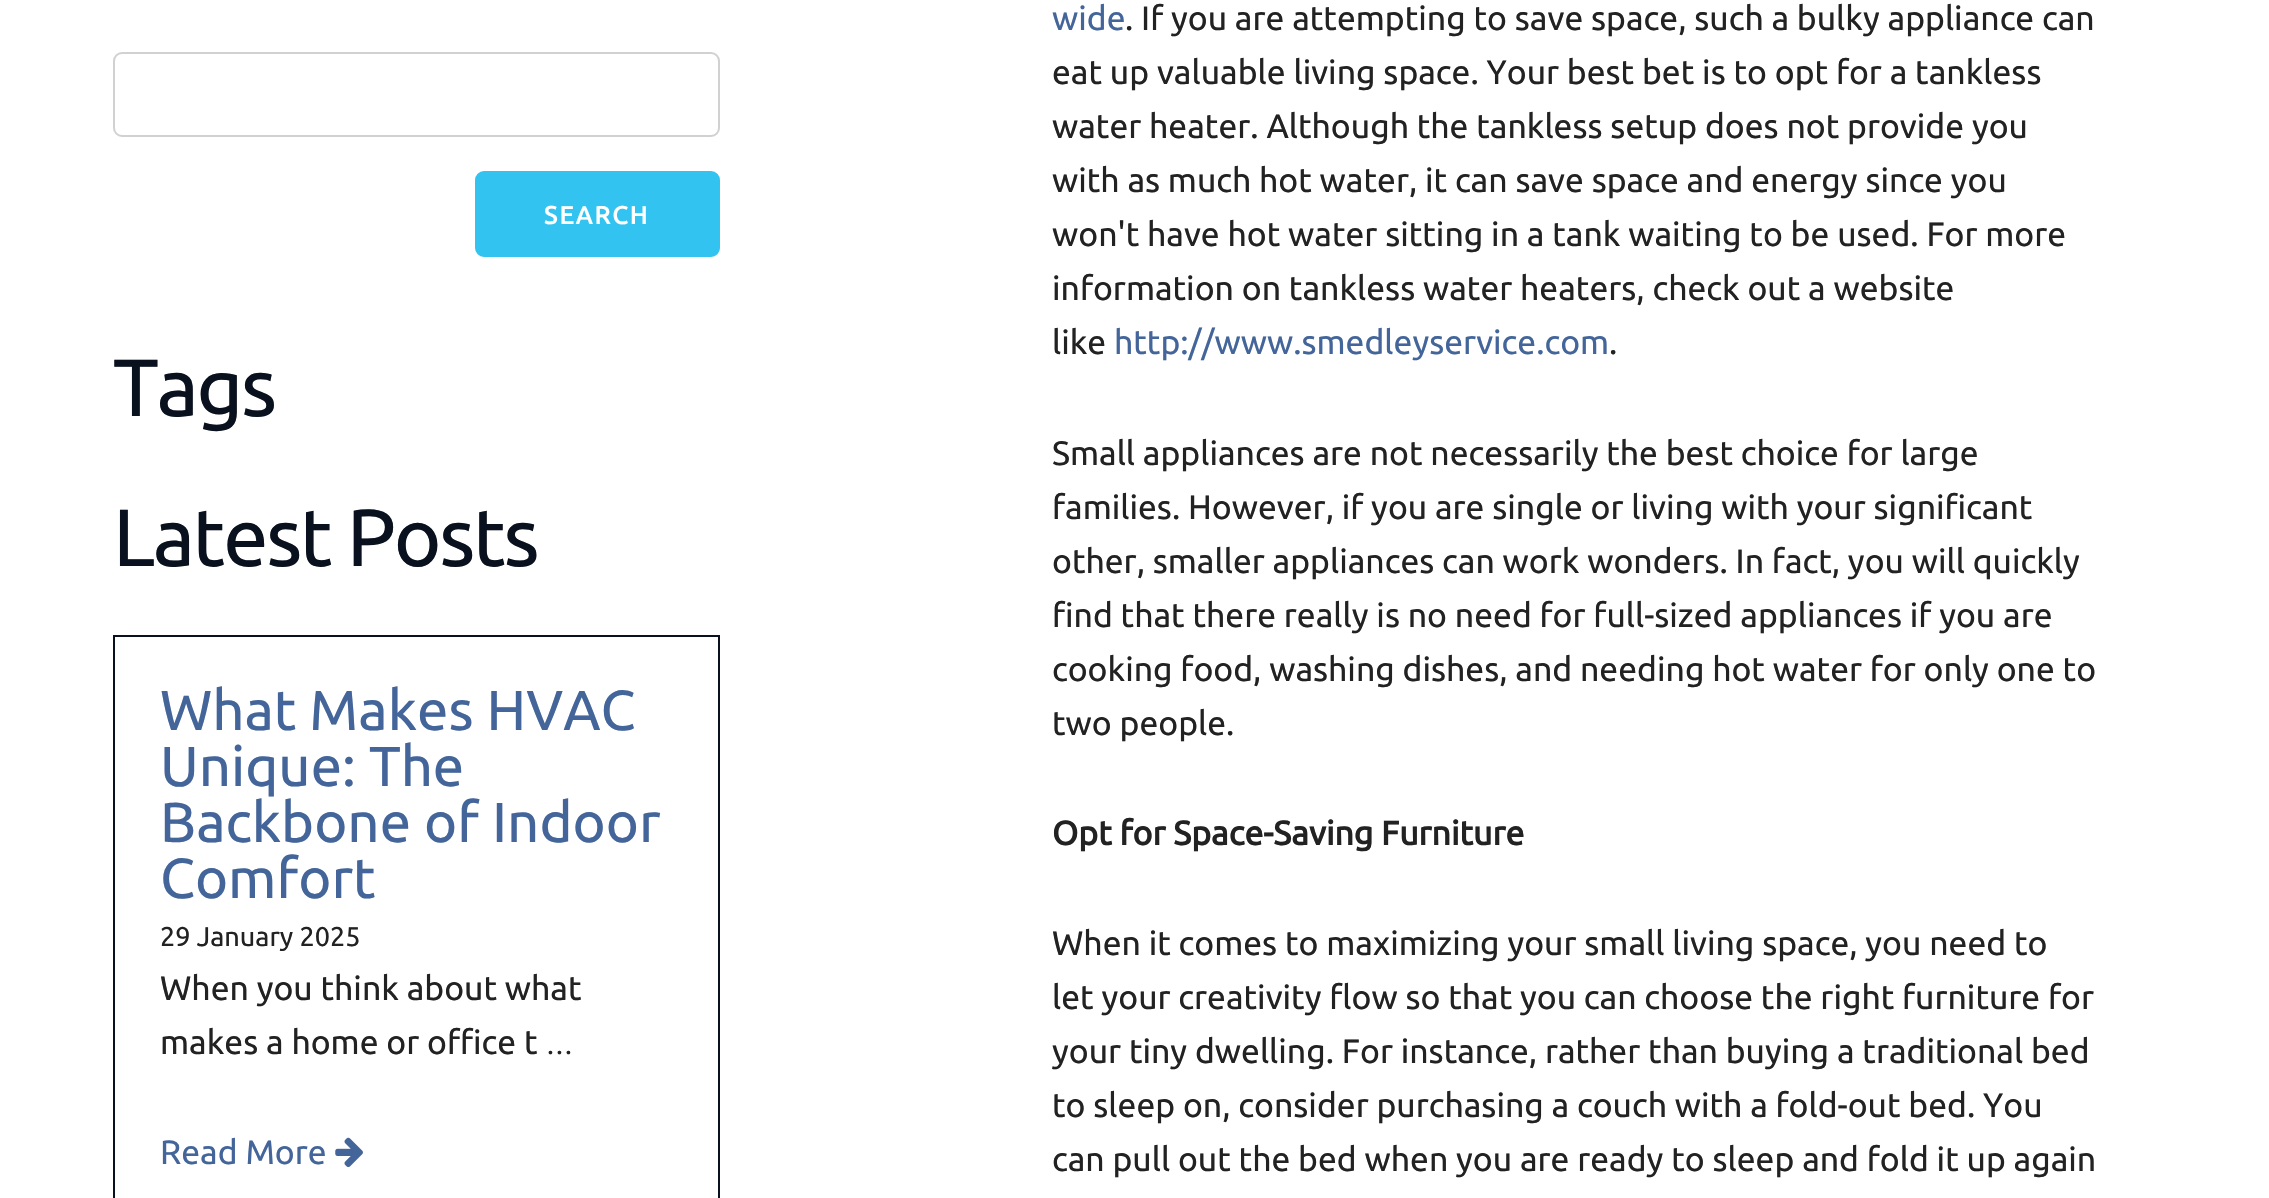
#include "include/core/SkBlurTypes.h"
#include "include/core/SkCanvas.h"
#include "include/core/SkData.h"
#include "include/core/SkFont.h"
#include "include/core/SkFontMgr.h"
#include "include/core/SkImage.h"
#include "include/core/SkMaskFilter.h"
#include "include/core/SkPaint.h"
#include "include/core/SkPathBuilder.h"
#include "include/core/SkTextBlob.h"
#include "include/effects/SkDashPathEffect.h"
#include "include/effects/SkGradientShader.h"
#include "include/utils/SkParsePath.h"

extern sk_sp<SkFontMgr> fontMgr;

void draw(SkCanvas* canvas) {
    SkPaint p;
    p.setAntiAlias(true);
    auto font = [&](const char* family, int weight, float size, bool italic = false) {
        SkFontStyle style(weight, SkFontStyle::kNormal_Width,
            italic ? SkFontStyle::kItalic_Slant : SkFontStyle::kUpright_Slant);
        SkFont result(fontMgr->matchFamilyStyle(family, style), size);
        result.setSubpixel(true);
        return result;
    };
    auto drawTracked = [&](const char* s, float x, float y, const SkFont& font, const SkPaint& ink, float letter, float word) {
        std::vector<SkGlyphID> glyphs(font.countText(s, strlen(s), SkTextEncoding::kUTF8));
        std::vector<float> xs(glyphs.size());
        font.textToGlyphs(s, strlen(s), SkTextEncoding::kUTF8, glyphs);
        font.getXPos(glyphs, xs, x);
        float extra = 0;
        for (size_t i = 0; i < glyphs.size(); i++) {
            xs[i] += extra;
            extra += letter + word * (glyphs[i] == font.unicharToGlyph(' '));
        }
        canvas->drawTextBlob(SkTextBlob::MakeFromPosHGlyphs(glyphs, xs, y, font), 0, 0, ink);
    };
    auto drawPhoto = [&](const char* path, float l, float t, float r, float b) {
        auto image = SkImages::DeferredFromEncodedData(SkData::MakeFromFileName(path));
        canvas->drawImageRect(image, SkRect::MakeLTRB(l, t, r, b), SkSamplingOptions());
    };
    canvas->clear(0xFFFFFFFF);
    p.setStyle(SkPaint::kStroke_Style);
    p.setStrokeWidth(2);
    p.setColor(0xFFD1D1D1);
    canvas->drawRoundRect(SkRect::MakeLTRB(114, 53, 719, 136), 8, 8, p);
    p.setStyle(SkPaint::kFill_Style);
    p.setColor(0xFF33C3F0);
    canvas->drawRoundRect(SkRect::MakeLTRB(476, 172, 719, 256), 8, 8, p);
    p.setStyle(SkPaint::kStroke_Style);
    canvas->drawRoundRect(SkRect::MakeLTRB(476, 172, 719, 256), 8, 8, p);
    auto font1 = font("Ubuntu", 700, 24.75f);
    p.setStyle(SkPaint::kFill_Style);
    p.setColor(0xFFFFFFFF);
    drawTracked("SEARCH", 544, 224, font1, p, 2.25f, 0);
    auto font2 = font("Ubuntu", 400, 81);
    p.setColor(0xFF09111E);
    drawTracked("Tags", 113, 416, font2, p, -2.25f, 0);
    drawTracked("Latest Posts", 113, 566, font2, p, -2.25f, 0);
    p.setStyle(SkPaint::kStroke_Style);
    canvas->drawRect(SkRect::MakeLTRB(114, 636, 719, 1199), p);
    auto font3 = font("Ubuntu", 400, 56.25f);
    p.setStyle(SkPaint::kFill_Style);
    p.setColor(0xFF43659A);
    {
        const struct { const char* s; float x, y; } items[] = {
            {"What Makes HVAC", 160, 730},
            {"Unique: The", 160, 786},
            {"Backbone of Indoor", 160, 842},
            {"Comfort", 160, 898},
        };
        for (auto [s, x, y] : items) {
            canvas->drawString(s, x, y, font3, p);
        }
    }
    auto font4 = font("Ubuntu", 400, 27);
    p.setColor(0xFF222222);
    canvas->drawString("29 January 2025", 160, 946, font4, p);
    auto font5 = font("Ubuntu", 400, 33.75f);
    canvas->drawString("When you think about what", 160, 1000, font5, p);
    canvas->drawString("makes a home or office t", 160, 1054, font5, p);
    canvas->drawString("…", 546, 1054, font4, p);
    p.setColor(0xFF43659A);
    canvas->drawString("Read More", 160, 1164, font5, p);
    drawPhoto("media/1.png", 335, 1137, 363, 1168);
    canvas->drawString("wide", 1052, 30, font5, p);
    p.setColor(0xFF222222);
    {
        const struct { const char* s; float x, y; } items[] = {
            {". If you are attempting to save space, such a bulky appliance can", 1125, 30},
            {"eat up valuable living space. Your best bet is to opt for a tankless", 1052, 84},
            {"water heater. Although the tankless setup does not provide you", 1052, 138},
            {"with as much hot water, it can save space and energy since you", 1052, 192},
            {"won't have hot water sitting in a tank waiting to be used. For more", 1052, 246},
            {"information on tankless water heaters, check out a website", 1052, 300},
            {"like", 1052, 354},
        };
        for (auto [s, x, y] : items) {
            canvas->drawString(s, x, y, font5, p);
        }
    }
    p.setColor(0xFF43659A);
    canvas->drawString("http://www.smedleyservice.com", 1114, 354, font5, p);
    p.setColor(0xFF222222);
    {
        const struct { const char* s; float x, y; } items[] = {
            {".", 1609, 354},
            {"Small appliances are not necessarily the best choice for large", 1052, 465},
            {"families. However, if you are single or living with your significant", 1052, 519},
            {"other, smaller appliances can work wonders. In fact, you will quickly", 1052, 573},
            {"find that there really is no need for full-sized appliances if you are", 1052, 627},
            {"cooking food, washing dishes, and needing hot water for only one to", 1052, 681},
            {"two people.", 1052, 735},
        };
        for (auto [s, x, y] : items) {
            canvas->drawString(s, x, y, font5, p);
        }
    }
    auto font6 = font("Ubuntu", 700, 33.75f);
    canvas->drawString("Opt for Space-Saving Furniture", 1052, 845, font6, p);
    {
        const struct { const char* s; float x, y; } items[] = {
            {"When it comes to maximizing your small living space, you need to", 1052, 955},
            {"let your creativity flow so that you can choose the right furniture for", 1052, 1009},
            {"your tiny dwelling. For instance, rather than buying a traditional bed", 1052, 1063},
            {"to sleep on, consider purchasing a couch with a fold-out bed. You", 1052, 1117},
            {"can pull out the bed when you are ready to sleep and fold it up again", 1052, 1171},
        };
        for (auto [s, x, y] : items) {
            canvas->drawString(s, x, y, font5, p);
        }
    }
}
